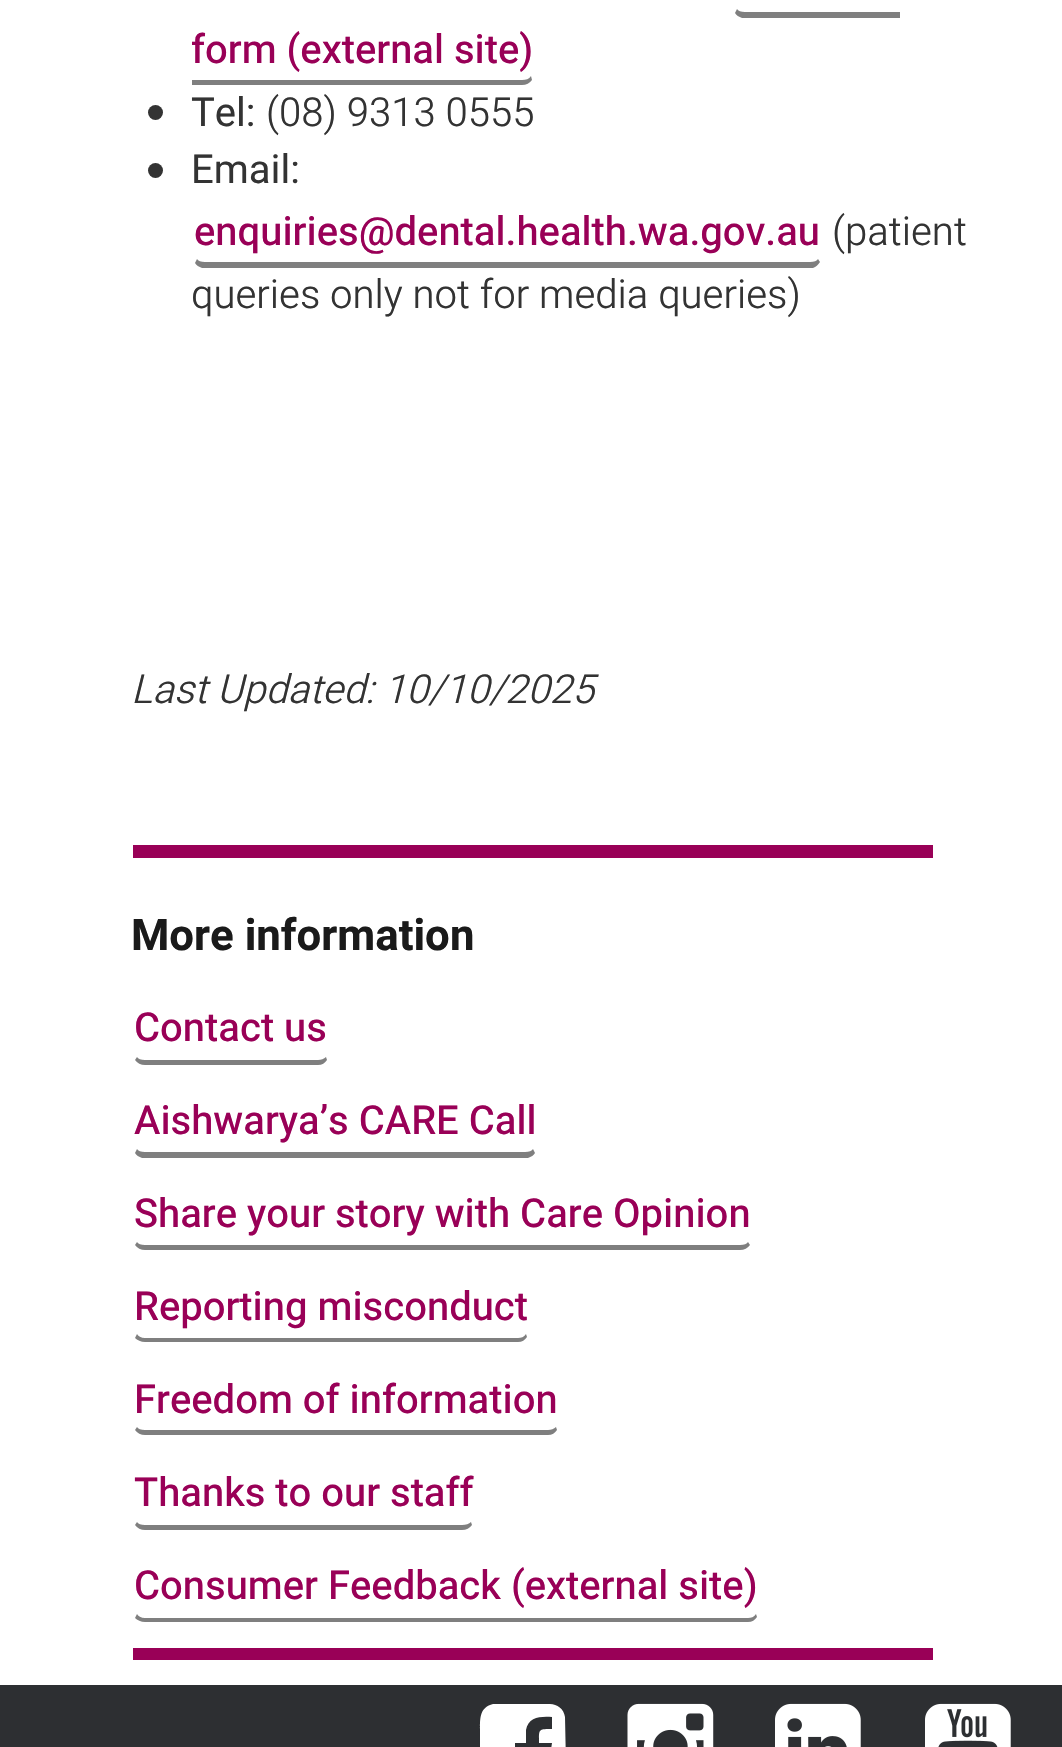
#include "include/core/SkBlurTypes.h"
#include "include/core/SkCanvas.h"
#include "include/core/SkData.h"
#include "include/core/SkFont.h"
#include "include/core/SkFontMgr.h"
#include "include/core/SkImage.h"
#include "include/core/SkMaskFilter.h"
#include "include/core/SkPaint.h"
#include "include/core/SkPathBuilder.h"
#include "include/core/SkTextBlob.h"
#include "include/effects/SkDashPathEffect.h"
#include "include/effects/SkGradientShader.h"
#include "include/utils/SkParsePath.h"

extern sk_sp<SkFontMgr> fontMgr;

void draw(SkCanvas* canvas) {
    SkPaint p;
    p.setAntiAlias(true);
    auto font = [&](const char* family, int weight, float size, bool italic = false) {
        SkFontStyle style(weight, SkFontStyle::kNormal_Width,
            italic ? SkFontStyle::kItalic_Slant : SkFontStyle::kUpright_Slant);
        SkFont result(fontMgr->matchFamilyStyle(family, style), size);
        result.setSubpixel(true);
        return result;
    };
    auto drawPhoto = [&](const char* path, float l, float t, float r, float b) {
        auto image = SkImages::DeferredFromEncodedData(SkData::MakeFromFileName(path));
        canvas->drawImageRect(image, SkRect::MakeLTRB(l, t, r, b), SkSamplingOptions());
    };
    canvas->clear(0xFFFFFFFF);
    auto font1 = font("Heebo", 500, 40);
    p.setColor(0xFF990057);
    canvas->drawString("form (external site)", 191, 63, font1, p);
    p.setColor(0xFF7F7F7F);
    canvas->drawPath(SkPathBuilder().moveTo(900, 18).lineTo(742, 18).cubicTo(739, 17, 736, 15, 735, 13).lineTo(737, 9).cubicTo(738, 11, 741, 12, 745, 12).lineTo(900, 12).close().detach(), p);
    canvas->drawPath(SkPathBuilder().moveTo(192, 80).lineTo(522, 80).cubicTo(526, 80, 529, 79, 531, 76).lineTo(532, 80).cubicTo(530, 83, 526, 85, 522, 85).lineTo(192, 85).close().detach(), p);
    p.setColor(0xFF333333);
    canvas->drawCircle(155.5f, 112.5f, 7.5f, p);
    auto font2 = font("Heebo", 400, 40);
    canvas->drawString("Tel:", 191, 126, font2, p);
    auto font3 = font("Heebo", 300, 40);
    canvas->drawString("(08) 9313 0555", 266, 126, font3, p);
    canvas->drawCircle(155.5f, 170.5f, 7.5f, p);
    canvas->drawString("Email:", 191, 183, font2, p);
    p.setColor(0xFF990057);
    canvas->drawString("enquiries@dental.health.wa.gov.au", 194, 245, font1, p);
    p.setColor(0xFF7F7F7F);
    canvas->drawPath(SkPathBuilder().moveTo(202, 268).cubicTo(199, 267, 196, 265, 195, 263).lineTo(197, 259).cubicTo(198, 261, 201, 262, 205, 262).lineTo(810, 262).cubicTo(814, 262, 817, 261, 818, 259).lineTo(820, 262).cubicTo(818, 265, 816, 267, 813, 268).close().detach(), p);
    p.setColor(0xFF333333);
    canvas->drawString("(patient", 832, 245, font3, p);
    canvas->drawString("queries only not for media queries)", 191, 308, font3, p);
    auto font4 = font("Heebo", 300, 40, true);
    canvas->drawString("Last Updated: 10/10/2025", 131, 703, font4, p);
    p.setColor(0xFF990057);
    canvas->drawRect(SkRect::MakeLTRB(133, 845, 933, 858), p);
    canvas->drawRect(SkRect::MakeLTRB(133, 1648, 933, 1660), p);
    auto font5 = font("Heebo", 700, 43.75f);
    p.setColor(0xFF1A1A1A);
    canvas->drawString("More information", 131, 950, font5, p);
    p.setColor(0xFF990057);
    canvas->drawString("Contact us", 134, 1041, font1, p);
    p.setColor(0xFF7F7F7F);
    canvas->drawPath(SkPathBuilder().moveTo(145, 1065).lineTo(318, 1065).cubicTo(322, 1065, 325, 1063, 327, 1060).lineTo(326, 1057).cubicTo(324, 1059, 321, 1060, 318, 1060).lineTo(145, 1060).cubicTo(141, 1060, 138, 1059, 137, 1057).lineTo(135, 1060).cubicTo(137, 1063, 141, 1065, 145, 1065).close().detach(), p);
    p.setColor(0xFF990057);
    canvas->drawString("Aishwarya’s CARE Call", 134, 1134, font1, p);
    p.setColor(0xFF7F7F7F);
    canvas->drawPath(SkPathBuilder().moveTo(142, 1158).cubicTo(139, 1157, 136, 1155, 135, 1153).lineTo(137, 1149).cubicTo(138, 1151, 141, 1152, 145, 1152).lineTo(525, 1152).cubicTo(529, 1152, 532, 1151, 533, 1149).lineTo(535, 1153).cubicTo(534, 1155, 531, 1157, 528, 1158).close().detach(), p);
    p.setColor(0xFF990057);
    canvas->drawString("Share your story with Care Opinion", 134, 1227, font1, p);
    p.setColor(0xFF7F7F7F);
    canvas->drawPath(SkPathBuilder().moveTo(145, 1250).lineTo(740, 1250).cubicTo(744, 1250, 748, 1248, 750, 1245).lineTo(748, 1242).cubicTo(747, 1244, 744, 1245, 740, 1245).lineTo(145, 1245).cubicTo(141, 1245, 138, 1244, 137, 1242).lineTo(135, 1245).cubicTo(137, 1248, 141, 1250, 145, 1250).close().detach(), p);
    p.setColor(0xFF990057);
    canvas->drawString("Reporting misconduct", 134, 1320, font1, p);
    p.setColor(0xFF7F7F7F);
    canvas->drawPath(SkPathBuilder().moveTo(527, 1337).cubicTo(525, 1340, 522, 1342, 518, 1342).lineTo(145, 1342).cubicTo(141, 1342, 137, 1340, 135, 1338).lineTo(137, 1334).cubicTo(138, 1336, 141, 1338, 145, 1338).lineTo(518, 1338).cubicTo(521, 1338, 524, 1337, 526, 1334).close().detach(), p);
    p.setColor(0xFF990057);
    canvas->drawString("Freedom of information", 134, 1413, font1, p);
    p.setColor(0xFF7F7F7F);
    canvas->drawPath(SkPathBuilder().moveTo(145, 1435).lineTo(548, 1435).cubicTo(552, 1435, 555, 1433, 557, 1430).lineTo(556, 1427).cubicTo(554, 1429, 551, 1430, 548, 1430).lineTo(145, 1430).cubicTo(141, 1430, 138, 1429, 137, 1427).lineTo(135, 1430).cubicTo(137, 1433, 141, 1435, 145, 1435).close().detach(), p);
    p.setColor(0xFF990057);
    canvas->drawString("Thanks to our staff", 134, 1506, font1, p);
    p.setColor(0xFF7F7F7F);
    canvas->drawPath(SkPathBuilder().moveTo(145, 1530).lineTo(462, 1530).cubicTo(466, 1530, 470, 1528, 472, 1525).lineTo(471, 1522).cubicTo(469, 1524, 466, 1525, 462, 1525).lineTo(145, 1525).cubicTo(141, 1525, 138, 1524, 137, 1522).lineTo(135, 1525).cubicTo(137, 1528, 141, 1530, 145, 1530).close().detach(), p);
    p.setColor(0xFF990057);
    canvas->drawString("Consumer Feedback (external site)", 134, 1599, font1, p);
    p.setColor(0xFF7F7F7F);
    canvas->drawPath(SkPathBuilder().moveTo(757, 1617).cubicTo(755, 1620, 752, 1622, 748, 1622).lineTo(145, 1622).cubicTo(141, 1622, 137, 1620, 135, 1618).lineTo(137, 1614).cubicTo(138, 1616, 141, 1618, 145, 1618).lineTo(748, 1618).cubicTo(751, 1618, 754, 1617, 756, 1614).close().detach(), p);
    p.setColor(0xFF2D2F32);
    canvas->drawRect(SkRect::MakeLTRB(0, 1685, 1062, 1747), p);
    p.setColor(0xFFFFFFFF);
    canvas->drawPath(SkPathBuilder().moveTo(550, 1704).cubicTo(557, 1704, 564, 1709, 565, 1717).lineTo(566, 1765).cubicTo(566, 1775, 566, 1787, 553, 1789).lineTo(539, 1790).lineTo(539, 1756).lineTo(550, 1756).lineTo(552, 1743).lineTo(539, 1743).cubicTo(539, 1729, 538, 1729, 552, 1729).lineTo(552, 1717).cubicTo(541, 1716, 528, 1717, 526, 1730).lineTo(526, 1743).lineTo(515, 1743).lineTo(515, 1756).lineTo(526, 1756).lineTo(526, 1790).lineTo(506, 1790).cubicTo(495, 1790, 483, 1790, 480, 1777).lineTo(480, 1729).cubicTo(480, 1718, 480, 1707, 493, 1704).close().detach(), p);
    drawPhoto("media/1.png", 627, 1703, 714, 1747);
    drawPhoto("media/2.png", 775, 1703, 861, 1747);
    drawPhoto("media/3.png", 925, 1703, 1011, 1747);
}
